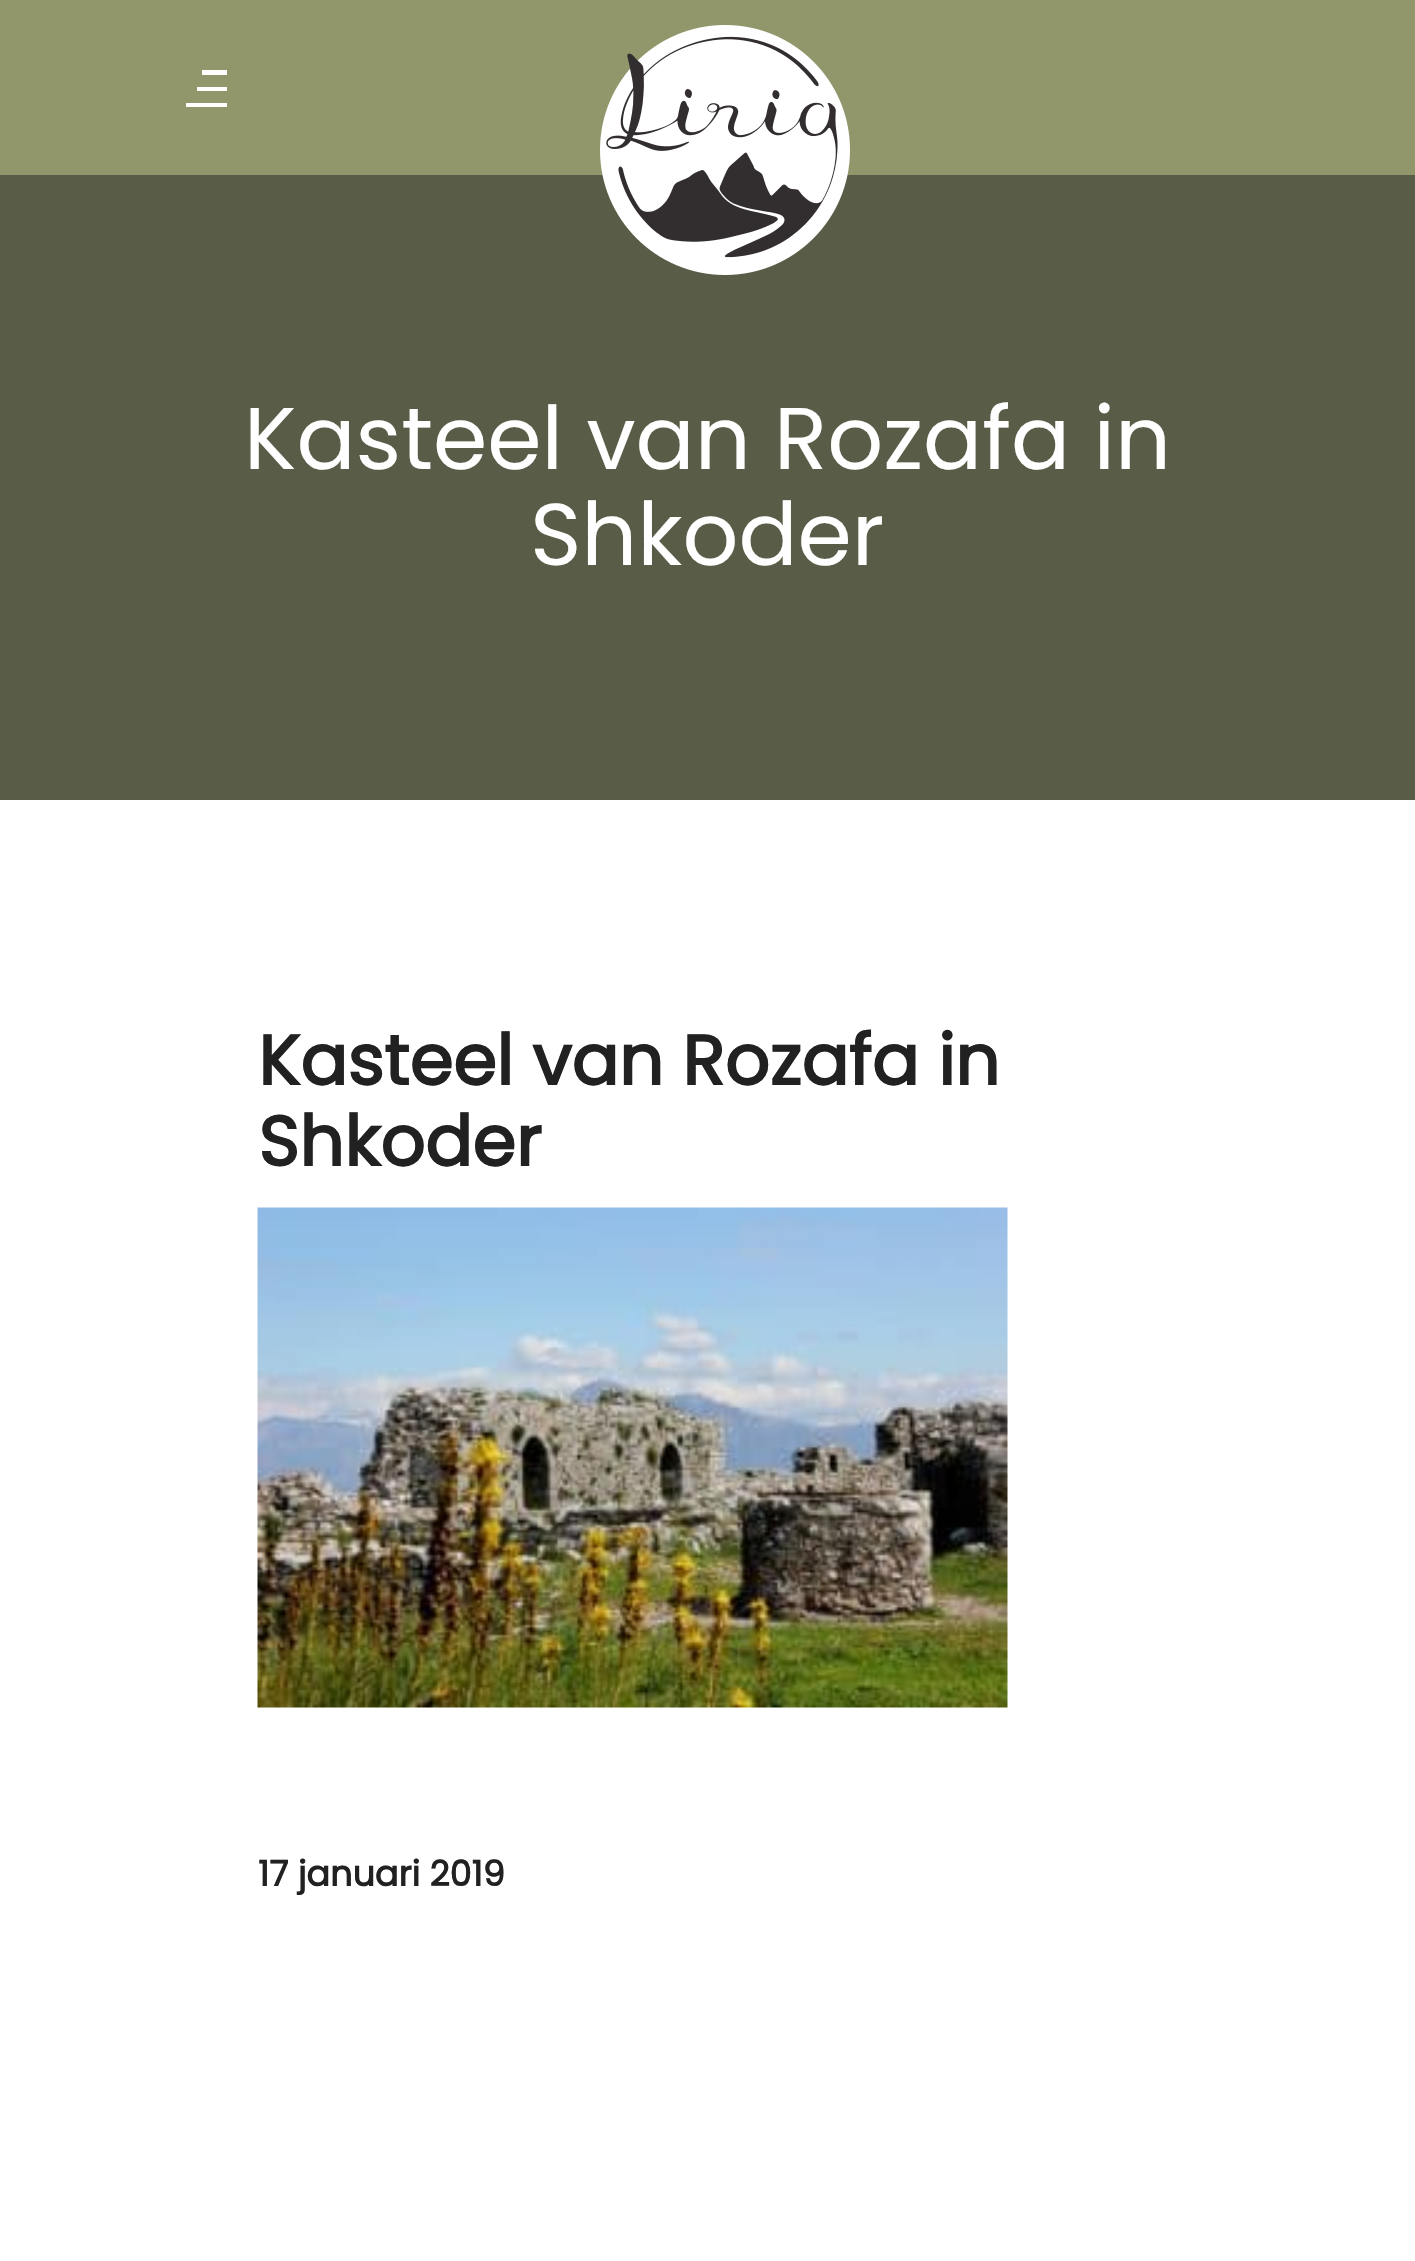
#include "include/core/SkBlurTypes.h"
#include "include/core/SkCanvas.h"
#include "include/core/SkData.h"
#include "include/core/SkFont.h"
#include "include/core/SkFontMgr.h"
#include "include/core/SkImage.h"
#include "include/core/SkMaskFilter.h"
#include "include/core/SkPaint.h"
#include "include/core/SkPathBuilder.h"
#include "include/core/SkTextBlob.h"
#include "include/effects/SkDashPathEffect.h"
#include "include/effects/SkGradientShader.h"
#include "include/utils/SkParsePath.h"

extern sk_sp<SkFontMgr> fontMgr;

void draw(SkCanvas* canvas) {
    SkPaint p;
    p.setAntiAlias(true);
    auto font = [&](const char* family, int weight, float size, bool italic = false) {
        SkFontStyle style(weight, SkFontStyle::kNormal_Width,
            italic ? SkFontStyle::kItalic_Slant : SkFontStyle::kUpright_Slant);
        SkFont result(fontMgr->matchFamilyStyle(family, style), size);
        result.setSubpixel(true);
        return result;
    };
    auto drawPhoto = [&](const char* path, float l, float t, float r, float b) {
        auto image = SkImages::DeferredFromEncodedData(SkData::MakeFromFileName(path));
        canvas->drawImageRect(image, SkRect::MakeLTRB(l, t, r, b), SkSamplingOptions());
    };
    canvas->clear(0xFFFFFFFF);
    {
        const struct { float l, t, r, b; SkColor color; } items[] = {
            {0, 0, 1415, 175, 0xFF91976B},
            {202, 70, 227, 75, 0xFFFFFFFF},
            {197, 87, 227, 91, 0xFFFFFFFF},
            {186, 103, 227, 107, 0xFFFFFFFF},
            {0, 175, 1415, 800, 0xFF595C46},
        };
        for (auto [l, t, r, b, color] : items) {
            p.setColor(color);
            canvas->drawRect(SkRect::MakeLTRB(l, t, r, b), p);
        }
    }
    drawPhoto("media/1.png", 600, 25, 850, 275);
    auto font1 = font("Poppins", 400, 87.5f);
    p.setColor(0xFFFFFFFF);
    canvas->drawString("Kasteel van Rozafa in", 244, 469, font1, p);
    canvas->drawString("Shkoder", 530, 565, font1, p);
    auto font2 = font("Poppins", 700, 70);
    p.setColor(0xFF212121);
    canvas->drawString("Kasteel van Rozafa in", 258, 1085, font2, p);
    canvas->drawString("Shkoder", 258, 1166, font2, p);
    drawPhoto("media/2.png", 257, 1207, 1008, 1708);
    auto font3 = font("Poppins", 700, 35);
    canvas->drawString("17 januari 2019", 258, 1886, font3, p);
}
